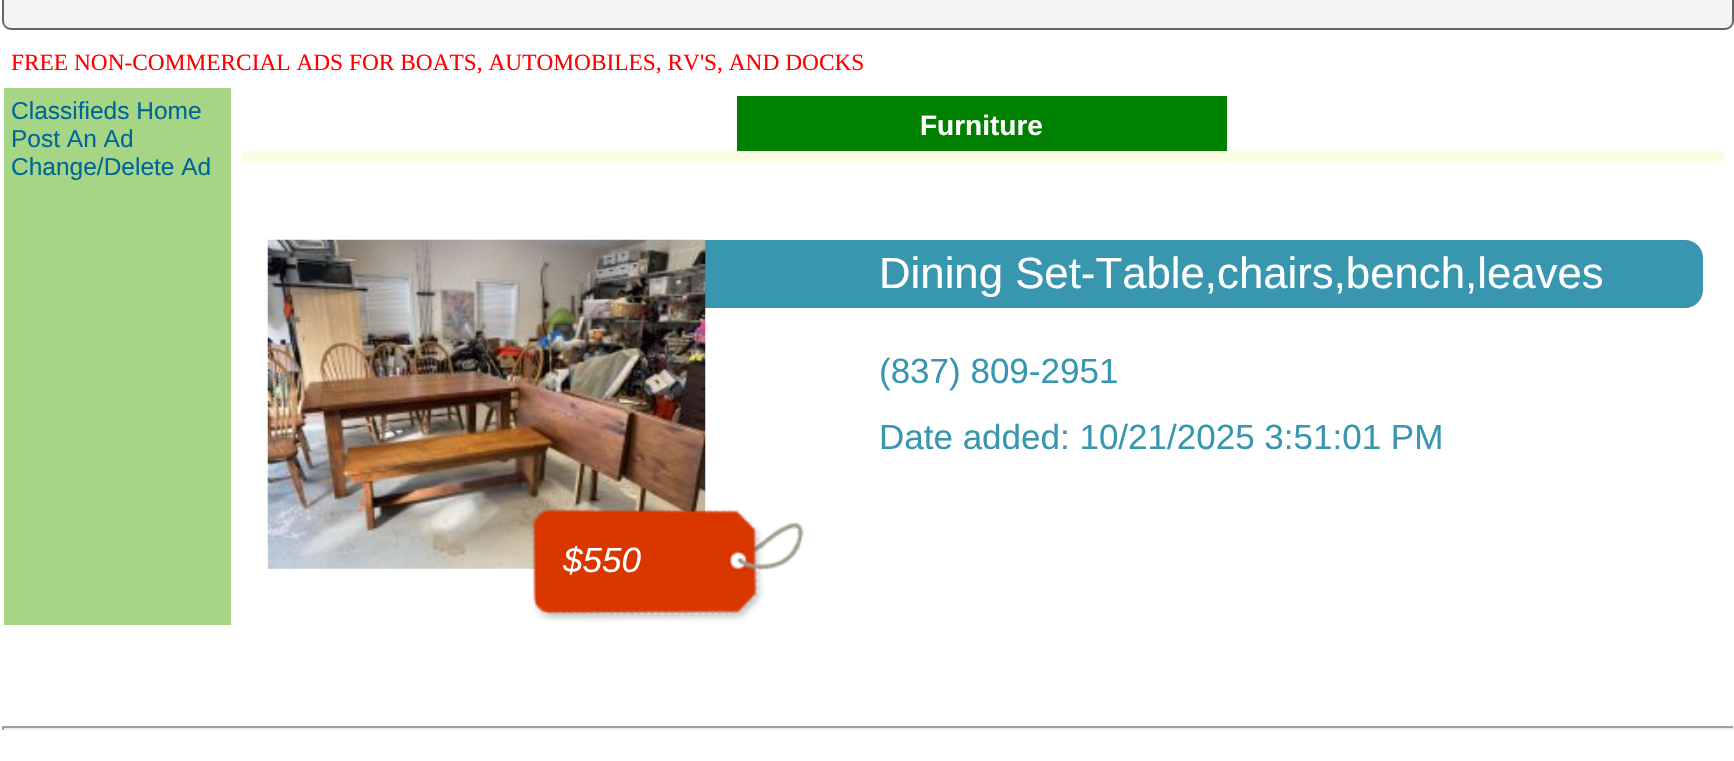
#include "include/core/SkBlurTypes.h"
#include "include/core/SkCanvas.h"
#include "include/core/SkData.h"
#include "include/core/SkFont.h"
#include "include/core/SkFontMgr.h"
#include "include/core/SkImage.h"
#include "include/core/SkMaskFilter.h"
#include "include/core/SkPaint.h"
#include "include/core/SkPathBuilder.h"
#include "include/core/SkTextBlob.h"
#include "include/effects/SkDashPathEffect.h"
#include "include/effects/SkGradientShader.h"
#include "include/utils/SkParsePath.h"

extern sk_sp<SkFontMgr> fontMgr;

void draw(SkCanvas* canvas) {
    SkPaint p;
    p.setAntiAlias(true);
    auto font = [&](const char* family, int weight, float size, bool italic = false) {
        SkFontStyle style(weight, SkFontStyle::kNormal_Width,
            italic ? SkFontStyle::kItalic_Slant : SkFontStyle::kUpright_Slant);
        SkFont result(fontMgr->matchFamilyStyle(family, style), size);
        result.setSubpixel(true);
        return result;
    };
    auto drawPhoto = [&](const char* path, float l, float t, float r, float b) {
        auto image = SkImages::DeferredFromEncodedData(SkData::MakeFromFileName(path));
        canvas->drawImageRect(image, SkRect::MakeLTRB(l, t, r, b), SkSamplingOptions());
    };
    canvas->clear(0xFFFFFFFF);
    p.setColor(0xFFF4F4F4);
    canvas->drawRoundRect(SkRect::MakeLTRB(3, -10, 1733, 29), 8, 8, p);
    p.setStyle(SkPaint::kStroke_Style);
    p.setStrokeWidth(2);
    p.setColor(0xFF666666);
    canvas->drawRoundRect(SkRect::MakeLTRB(3, -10, 1733, 29), 8, 8, p);
    auto font1 = font("Liberation Serif", 400, 23.35f);
    p.setStyle(SkPaint::kFill_Style);
    p.setColor(0xFFFF0000);
    canvas->drawString("FREE NON-COMMERCIAL ADS FOR BOATS, AUTOMOBILES, RV'S, AND DOCKS", 11, 70, font1, p);
    p.setColor(0xFFA6D586);
    canvas->drawRect(SkRect::MakeLTRB(4, 88, 231, 625), p);
    auto font2 = font("Liberation Sans", 400, 24.5f);
    p.setColor(0xFF006699);
    {
        const struct { const char* s; float x, y; } items[] = {
            {"Classifieds Home", 11, 119},
            {"Post An Ad", 11, 147},
            {"Change/Delete Ad", 11, 175},
        };
        for (auto [s, x, y] : items) {
            canvas->drawString(s, x, y, font2, p);
        }
    }
    p.setColor(0xFF008000);
    canvas->drawRect(SkRect::MakeLTRB(737, 96, 1227, 151), p);
    auto font3 = font("Liberation Sans", 700, 28);
    p.setColor(0xFFFFFFFF);
    canvas->drawString("Furniture", 920, 135, font3, p);
    p.setColor(0xFFFBFCE0);
    canvas->drawRect(SkRect::MakeLTRB(242, 151, 1724, 161), p);
    p.setColor(0xFF3896AF);
    canvas->drawPath(SkPathBuilder().moveTo(705, 240).lineTo(1685, 240).cubicTo(1695, 240, 1703, 248, 1703, 258).lineTo(1703, 290).cubicTo(1703, 300, 1695, 308, 1685, 308).lineTo(705, 308).close().detach(), p);
    drawPhoto("media/1.png", 267, 239, 706, 569);
    auto font4 = font("Liberation Sans", 400, 43.75f);
    p.setColor(0xFFFFFFFF);
    canvas->drawString("Dining Set-Table,chairs,bench,leaves", 879, 288, font4, p);
    auto font5 = font("Liberation Sans", 400, 35);
    p.setColor(0xFF3896AF);
    canvas->drawString("(837) 809-2951", 879, 383, font5, p);
    canvas->drawString("Date added: 10/21/2025 3:51:01 PM", 879, 449, font5, p);
    drawPhoto("media/2.png", 531, 508, 804, 622);
    auto font6 = font("Liberation Sans", 400, 35, true);
    p.setColor(0xFFFFFFFF);
    canvas->drawString("$550", 563, 572, font6, p);
    {
        const struct { float l, t, r, b; SkColor color; } items[] = {
            {2, 726, 1734, 728, 0xFF9F9F9F},
            {1733, 726, 1734, 730, 0xFFEEEEEE},
            {2, 728, 1734, 730, 0xFFEEEEEE},
            {2, 726, 4, 730, 0xFF9F9F9F},
        };
        for (auto [l, t, r, b, color] : items) {
            p.setColor(color);
            canvas->drawRect(SkRect::MakeLTRB(l, t, r, b), p);
        }
    }
}
